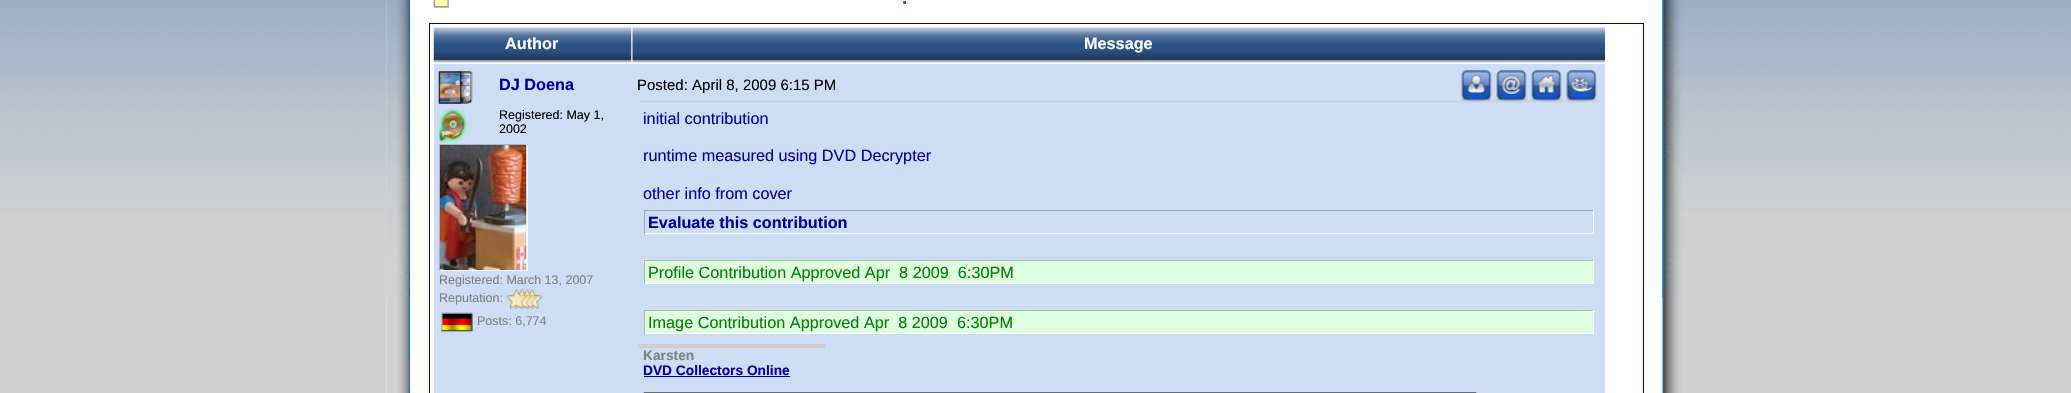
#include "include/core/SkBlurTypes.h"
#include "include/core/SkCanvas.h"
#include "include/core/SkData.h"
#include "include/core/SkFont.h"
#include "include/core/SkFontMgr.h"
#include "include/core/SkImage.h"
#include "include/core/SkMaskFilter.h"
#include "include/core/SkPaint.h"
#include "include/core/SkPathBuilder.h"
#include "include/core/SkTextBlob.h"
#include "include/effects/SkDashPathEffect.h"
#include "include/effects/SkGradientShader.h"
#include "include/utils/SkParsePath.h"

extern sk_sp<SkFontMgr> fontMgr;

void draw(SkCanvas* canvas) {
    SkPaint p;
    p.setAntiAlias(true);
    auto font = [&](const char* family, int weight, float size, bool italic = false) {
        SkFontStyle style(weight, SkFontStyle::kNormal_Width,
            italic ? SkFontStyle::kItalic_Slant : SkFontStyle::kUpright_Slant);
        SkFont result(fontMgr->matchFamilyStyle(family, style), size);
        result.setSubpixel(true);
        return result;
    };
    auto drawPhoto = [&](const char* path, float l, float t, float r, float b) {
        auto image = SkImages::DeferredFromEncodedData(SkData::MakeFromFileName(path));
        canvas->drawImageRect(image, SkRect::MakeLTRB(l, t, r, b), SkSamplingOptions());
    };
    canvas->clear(0xFFD2D2D2);
    drawPhoto("media/1.png", 0, 0, 2071, 214);
    p.setColor(0xFFFFFFFF);
    canvas->drawRect(SkRect::MakeLTRB(386, 0, 1663, 393), p);
    drawPhoto("media/2.png", 386, 0, 410, 393);
    drawPhoto("media/3.png", 386, 0, 410, 298);
    drawPhoto("media/4.png", 433, 0, 449, 8);
    auto font1 = font("Liberation Sans", 700, 19);
    p.setColor(0xFF295183);
    canvas->drawString(".", 902, 4, font1, p);
    p.setStyle(SkPaint::kStroke_Style);
    p.setStrokeWidth(1);
    p.setColor(0xFF0000A0);
    canvas->drawRect(SkRect::MakeLTRB(429.5f, 23.5f, 1643.5f, 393.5f), p);
    drawPhoto("media/5.png", 433, 27, 632, 63);
    auto font2 = font("Liberation Sans", 700, 16.25f);
    p.setStyle(SkPaint::kFill_Style);
    p.setColor(0xFFFFFFFF);
    canvas->drawString("Author", 505, 49, font2, p);
    drawPhoto("media/6.png", 632, 27, 1605, 63);
    canvas->drawString("Message", 1084, 49, font2, p);
    p.setColor(0xFFCDDDF3);
    canvas->drawRect(SkRect::MakeLTRB(434, 64, 1605, 393), p);
    drawPhoto("media/7.png", 438, 70, 473, 104);
    drawPhoto("media/8.png", 438, 108, 468, 143);
    p.setColor(0xFF0000A0);
    canvas->drawString("DJ Doena", 499, 90, font2, p);
    auto font3 = font("Liberation Sans", 400, 12.5f);
    p.setColor(0xFF000000);
    canvas->drawString("Registered: May 1,", 499, 119, font3, p);
    canvas->drawString("2002", 499, 133, font3, p);
    {
        const struct { float l, t, r, b; SkColor color; } items[] = {
            {440, 145, 528, 271, 0xFFFEFEFE},
            {439, 144, 528, 145, 0xFFB0B0C0},
            {526, 144, 527, 145, 0xFFFFFFFF},
            {439, 144, 440, 271, 0xFFB0B0C0},
        };
        for (auto [l, t, r, b, color] : items) {
            p.setColor(color);
            canvas->drawRect(SkRect::MakeLTRB(l, t, r, b), p);
        }
    }
    drawPhoto("media/9.png", 440, 145, 527, 270);
    p.setColor(0xFF808080);
    canvas->drawString("Registered: March 13, 2007", 439, 284, font3, p);
    canvas->drawString("Reputation:", 439, 302, font3, p);
    drawPhoto("media/10.png", 506, 288, 543, 309);
    drawPhoto("media/11.png", 441, 312, 473, 332);
    canvas->drawString("Posts: 6,774", 477, 325, font3, p);
    auto font4 = font("Liberation Sans", 400, 15);
    p.setColor(0xFF000000);
    canvas->drawString("Posted: April 8, 2009 6:15 PM", 637, 90, font4, p);
    p.setColor(0xFFCECECE);
    canvas->drawRect(SkRect::MakeLTRB(638, 101, 1600, 102), p);
    drawPhoto("media/12.png", 1460, 69, 1493, 102);
    drawPhoto("media/13.png", 1495, 69, 1528, 102);
    drawPhoto("media/14.png", 1530, 69, 1563, 102);
    drawPhoto("media/15.png", 1565, 69, 1598, 102);
    auto font5 = font("Liberation Sans", 400, 16.25f);
    p.setColor(0xFF0000A0);
    {
        const struct { const char* s; float x, y; } items[] = {
            {"initial contribution", 643, 124},
            {"runtime measured using DVD Decrypter", 643, 161},
            {"other info from cover", 643, 199},
        };
        for (auto [s, x, y] : items) {
            canvas->drawString(s, x, y, font5, p);
        }
    }
    {
        const struct { float l, t, r, b; SkColor color; } items[] = {
            {644, 210, 1594, 211, 0xFFA0A0C0},
            {1593, 210, 1594, 234, 0xFFFFFFFF},
            {644, 233, 1594, 234, 0xFFFFFFFF},
            {644, 210, 645, 234, 0xFFA0A0C0},
        };
        for (auto [l, t, r, b, color] : items) {
            p.setColor(color);
            canvas->drawRect(SkRect::MakeLTRB(l, t, r, b), p);
        }
    }
    p.setColor(0xFF0000A0);
    canvas->drawString("Evaluate this contribution", 648, 228, font2, p);
    {
        const struct { float l, t, r, b; SkColor color; } items[] = {
            {645, 261, 1593, 283, 0xFFE0FFE0},
            {644, 260, 1594, 261, 0xFFA0C0A0},
            {1593, 260, 1594, 284, 0xFFFFFFFF},
            {644, 283, 1594, 284, 0xFFFFFFFF},
            {644, 260, 645, 284, 0xFFA0C0A0},
        };
        for (auto [l, t, r, b, color] : items) {
            p.setColor(color);
            canvas->drawRect(SkRect::MakeLTRB(l, t, r, b), p);
        }
    }
    p.setColor(0xFF008000);
    canvas->drawString("Profile Contribution Approved Apr  8 2009  6:30PM", 648, 278, font5, p);
    {
        const struct { float l, t, r, b; SkColor color; } items[] = {
            {645, 311, 1593, 333, 0xFFE0FFE0},
            {644, 310, 1594, 311, 0xFFA0C0A0},
            {1593, 310, 1594, 334, 0xFFFFFFFF},
            {644, 333, 1594, 334, 0xFFFFFFFF},
            {644, 310, 645, 334, 0xFFA0C0A0},
        };
        for (auto [l, t, r, b, color] : items) {
            p.setColor(color);
            canvas->drawRect(SkRect::MakeLTRB(l, t, r, b), p);
        }
    }
    p.setColor(0xFF008000);
    canvas->drawString("Image Contribution Approved Apr  8 2009  6:30PM", 648, 328, font5, p);
    p.setColor(0xFFCECECE);
    canvas->drawRect(SkRect::MakeLTRB(638, 344, 825, 348), p);
    auto font6 = font("Liberation Sans", 700, 13.75f);
    p.setColor(0xFF808080);
    canvas->drawString("Karsten", 643, 360, font6, p);
    p.setColor(0xFF0000A0);
    canvas->drawString("DVD Collectors Online", 643, 375, font6, p);
    canvas->drawRect(SkRect::MakeLTRB(644, 376, 790, 377), p);
    drawPhoto("media/16.png", 643, 392, 1477, 393);
    drawPhoto("media/17.png", 1662, 0, 1687, 393);
    drawPhoto("media/18.png", 1662, 0, 1687, 298);
}
